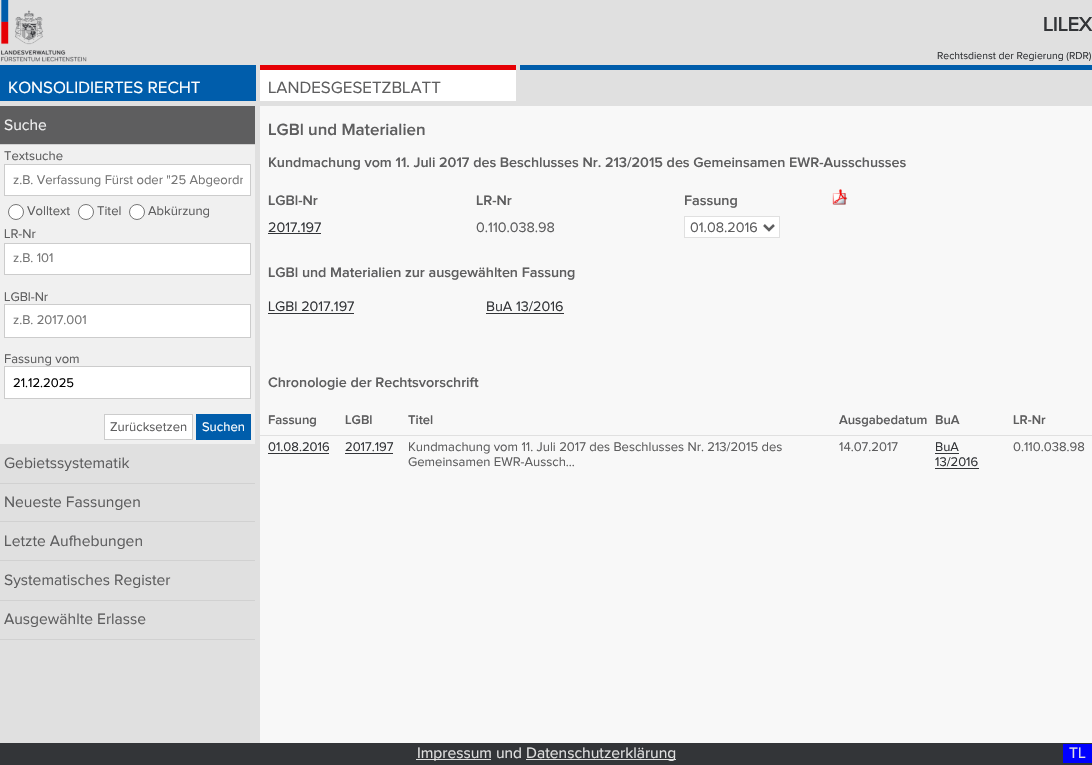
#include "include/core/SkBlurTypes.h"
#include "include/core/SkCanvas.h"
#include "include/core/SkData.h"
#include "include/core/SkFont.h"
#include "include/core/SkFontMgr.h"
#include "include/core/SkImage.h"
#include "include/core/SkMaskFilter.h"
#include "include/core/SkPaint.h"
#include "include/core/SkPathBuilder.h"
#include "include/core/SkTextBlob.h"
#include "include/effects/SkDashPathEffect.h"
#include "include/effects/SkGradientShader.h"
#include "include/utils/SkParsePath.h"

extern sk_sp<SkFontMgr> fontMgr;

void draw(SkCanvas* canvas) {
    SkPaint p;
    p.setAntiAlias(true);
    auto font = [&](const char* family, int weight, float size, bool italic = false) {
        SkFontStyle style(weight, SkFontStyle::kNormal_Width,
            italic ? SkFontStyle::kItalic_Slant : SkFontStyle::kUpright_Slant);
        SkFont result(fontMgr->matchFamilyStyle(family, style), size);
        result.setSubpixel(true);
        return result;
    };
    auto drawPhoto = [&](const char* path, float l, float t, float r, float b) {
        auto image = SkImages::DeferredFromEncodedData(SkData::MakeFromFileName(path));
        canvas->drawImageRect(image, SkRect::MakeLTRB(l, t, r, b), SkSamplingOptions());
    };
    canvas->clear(0xFFE0E0E0);
    drawPhoto("media/1.png", 1, 0, 87, 62);
    auto font1 = font("Proxima Nova", 700, 20);
    p.setColor(0xFF333538);
    canvas->drawString("LILEX", 1043, 31, font1, p);
    auto font2 = font("Proxima Nova", 400, 10.4f);
    canvas->drawString("Rechtsdienst der Regierung (RDR)", 937, 59, font2, p);
    p.setColor(0xFF005DAB);
    canvas->drawRect(SkRect::MakeLTRB(520, 65, 1092, 70), p);
    canvas->drawRect(SkRect::MakeLTRB(0, 65, 256, 101), p);
    auto font3 = font("Proxima Nova", 400, 16.9f);
    p.setColor(0xFFFFFFFF);
    canvas->drawString("KONSOLIDIERTES RECHT", 8, 93, font3, p);
    canvas->drawRect(SkRect::MakeLTRB(260, 70, 516, 101), p);
    p.setColor(0xFFE60005);
    canvas->drawRect(SkRect::MakeLTRB(260, 65, 516, 70), p);
    p.setColor(0xFF5E5E5F);
    canvas->drawString("LANDESGESETZBLATT", 268, 93, font3, p);
    {
        const struct { float l, t, r, b; SkColor color; } items[] = {
            {0, 145, 255, 444, 0xFFF0F0F0},
            {0, 106, 255, 144, 0xFF5E5E5F},
            {0, 144, 255, 145, 0xFFD1D1D1},
        };
        for (auto [l, t, r, b, color] : items) {
            p.setColor(color);
            canvas->drawRect(SkRect::MakeLTRB(l, t, r, b), p);
        }
    }
    auto font4 = font("Proxima Nova", 400, 15.6f);
    p.setColor(0xFFF0F0F0);
    canvas->drawString("Suche", 4, 130, font4, p);
    auto font5 = font("Proxima Nova", 400, 13);
    p.setColor(0xFF5E5E5F);
    canvas->drawString("Textsuche", 4, 160, font5, p);
    p.setColor(0xFFFFFFFF);
    canvas->drawRect(SkRect::MakeLTRB(4.5f, 164.5f, 250.5f, 195.5f), p);
    p.setStyle(SkPaint::kStroke_Style);
    p.setStrokeWidth(1);
    p.setColor(0xFFCCCCCC);
    canvas->drawRect(SkRect::MakeLTRB(4.5f, 164.5f, 250.5f, 195.5f), p);
    canvas->save();
    canvas->clipRect(SkRect::MakeLTRB(13, 173, 243, 188));
    p.setStyle(SkPaint::kFill_Style);
    p.setColor(0xFF757575);
    canvas->drawString("z.B. Verfassung Fürst oder \"25 Abgeordn", 13, 184, font5, p);
    canvas->restore();
    p.setColor(0xFFFFFFFF);
    canvas->drawCircle(16, 212, 7.5f, p);
    p.setStyle(SkPaint::kStroke_Style);
    p.setColor(0xFF767676);
    canvas->drawCircle(16, 212, 7.5f, p);
    p.setStyle(SkPaint::kFill_Style);
    p.setColor(0xFF5E5E5F);
    canvas->drawString("Volltext", 27, 215, font5, p);
    p.setColor(0xFFFFFFFF);
    canvas->drawCircle(86, 212, 7.5f, p);
    p.setStyle(SkPaint::kStroke_Style);
    p.setColor(0xFF767676);
    canvas->drawCircle(86, 212, 7.5f, p);
    p.setStyle(SkPaint::kFill_Style);
    p.setColor(0xFF5E5E5F);
    canvas->drawString("Titel", 97, 215, font5, p);
    p.setColor(0xFFFFFFFF);
    canvas->drawCircle(137, 212, 7.5f, p);
    p.setStyle(SkPaint::kStroke_Style);
    p.setColor(0xFF767676);
    canvas->drawCircle(137, 212, 7.5f, p);
    p.setStyle(SkPaint::kFill_Style);
    p.setColor(0xFF5E5E5F);
    canvas->drawString("Abkürzung", 148, 215, font5, p);
    canvas->drawString("LR-Nr", 4, 238, font5, p);
    p.setColor(0xFFFFFFFF);
    canvas->drawRect(SkRect::MakeLTRB(4.5f, 243.5f, 250.5f, 274.5f), p);
    p.setStyle(SkPaint::kStroke_Style);
    p.setColor(0xFFCCCCCC);
    canvas->drawRect(SkRect::MakeLTRB(4.5f, 243.5f, 250.5f, 274.5f), p);
    p.setStyle(SkPaint::kFill_Style);
    p.setColor(0xFF757575);
    canvas->drawString("z.B. 101", 13, 262, font5, p);
    p.setColor(0xFF5E5E5F);
    canvas->drawString("LGBl-Nr", 4, 301, font5, p);
    p.setColor(0xFFFFFFFF);
    canvas->drawRect(SkRect::MakeLTRB(4.5f, 304.5f, 250.5f, 337.5f), p);
    p.setStyle(SkPaint::kStroke_Style);
    p.setColor(0xFFCCCCCC);
    canvas->drawRect(SkRect::MakeLTRB(4.5f, 304.5f, 250.5f, 337.5f), p);
    p.setStyle(SkPaint::kFill_Style);
    p.setColor(0xFF757575);
    canvas->drawString("z.B. 2017.001", 13, 324, font5, p);
    p.setColor(0xFF5E5E5F);
    canvas->drawString("Fassung vom", 4, 363, font5, p);
    p.setColor(0xFFFFFFFF);
    canvas->drawRect(SkRect::MakeLTRB(4.5f, 366.5f, 250.5f, 398.5f), p);
    p.setStyle(SkPaint::kStroke_Style);
    p.setColor(0xFFCCCCCC);
    canvas->drawRect(SkRect::MakeLTRB(4.5f, 366.5f, 250.5f, 398.5f), p);
    p.setStyle(SkPaint::kFill_Style);
    p.setColor(0xFF000000);
    canvas->drawString("21.12.2025", 13, 387, font5, p);
    p.setColor(0xFFFFFFFF);
    canvas->drawRect(SkRect::MakeLTRB(104.5f, 414.5f, 192.5f, 439.5f), p);
    p.setStyle(SkPaint::kStroke_Style);
    p.setColor(0xFFCCCCCC);
    canvas->drawRect(SkRect::MakeLTRB(104.5f, 414.5f, 192.5f, 439.5f), p);
    p.setStyle(SkPaint::kFill_Style);
    p.setColor(0xFF5E5E5F);
    canvas->drawString("Zurücksetzen", 110, 431, font5, p);
    p.setColor(0xFF005DAB);
    canvas->drawRect(SkRect::MakeLTRB(196, 414, 251, 440), p);
    p.setColor(0xFFFFFFFF);
    canvas->drawString("Suchen", 202, 431, font5, p);
    p.setColor(0xFFD1D1D1);
    canvas->drawRect(SkRect::MakeLTRB(0, 483, 255, 484), p);
    p.setColor(0xFF5E5E5F);
    canvas->drawString("Gebietssystematik", 4, 468, font4, p);
    p.setColor(0xFFD1D1D1);
    canvas->drawRect(SkRect::MakeLTRB(0, 521, 255, 522), p);
    p.setColor(0xFF5E5E5F);
    canvas->drawString("Neueste Fassungen", 4, 507, font4, p);
    p.setColor(0xFFD1D1D1);
    canvas->drawRect(SkRect::MakeLTRB(0, 560, 255, 561), p);
    p.setColor(0xFF5E5E5F);
    canvas->drawString("Letzte Aufhebungen", 4, 546, font4, p);
    p.setColor(0xFFD1D1D1);
    canvas->drawRect(SkRect::MakeLTRB(0, 600, 255, 601), p);
    p.setColor(0xFF5E5E5F);
    canvas->drawString("Systematisches Register", 4, 585, font4, p);
    p.setColor(0xFFD1D1D1);
    canvas->drawRect(SkRect::MakeLTRB(0, 639, 255, 640), p);
    p.setColor(0xFF5E5E5F);
    canvas->drawString("Ausgewählte Erlasse", 4, 624, font4, p);
    p.setColor(0xFFF8F8F8);
    canvas->drawRect(SkRect::MakeLTRB(260, 106, 1092, 743), p);
    auto font6 = font("Proxima Nova", 600, 16.9f);
    p.setColor(0xFF5E5E5F);
    canvas->drawString("LGBl und Materialien", 268, 135, font6, p);
    auto font7 = font("Proxima Nova", 600, 14.3f);
    {
        const struct { const char* s; float x, y; } items[] = {
            {"Kundmachung vom 11. Juli 2017 des Beschlusses Nr. 213/2015 des Gemeinsamen EWR-Ausschusses", 268, 167},
            {"LGBl-Nr", 268, 205},
            {"LR-Nr", 476, 205},
            {"Fassung", 684, 205},
        };
        for (auto [s, x, y] : items) {
            canvas->drawString(s, x, y, font7, p);
        }
    }
    drawPhoto("media/2.png", 832, 189, 848, 205);
    auto font8 = font("Proxima Nova", 400, 14.3f);
    p.setColor(0xFF333538);
    canvas->drawString("2017.197", 268, 232, font8, p);
    canvas->drawRect(SkRect::MakeLTRB(268, 233, 321, 234), p);
    p.setColor(0xFF5E5E5F);
    canvas->drawString("0.110.038.98", 476, 232, font8, p);
    p.setColor(0xFFFFFFFF);
    canvas->drawRect(SkRect::MakeLTRB(684.5f, 216.5f, 779.5f, 237.5f), p);
    p.setStyle(SkPaint::kStroke_Style);
    p.setColor(0xFFE0E0E0);
    canvas->drawRect(SkRect::MakeLTRB(684.5f, 216.5f, 779.5f, 237.5f), p);
    p.setStrokeWidth(2.5f);
    p.setColor(0xFF5E5E5F);
    canvas->drawPath(SkPathBuilder().moveTo(764, 225).lineTo(769, 230).lineTo(774, 225).detach(), p);
    p.setStyle(SkPaint::kFill_Style);
    canvas->drawString("01.08.2016", 690, 232, font8, p);
    canvas->drawString("LGBl und Materialien zur ausgewählten Fassung", 268, 277, font7, p);
    p.setColor(0xFF333538);
    canvas->drawString("LGBl 2017.197", 268, 311, font8, p);
    canvas->drawRect(SkRect::MakeLTRB(268, 313, 354, 314), p);
    canvas->drawString("BuA 13/2016", 486, 311, font8, p);
    canvas->drawRect(SkRect::MakeLTRB(486, 313, 564, 314), p);
    p.setColor(0xFF5E5E5F);
    canvas->drawString("Chronologie der Rechtsvorschrift", 268, 387, font7, p);
    auto font9 = font("Proxima Nova", 600, 13);
    {
        const struct { const char* s; float x, y; } items[] = {
            {"Fassung", 268, 424},
            {"LGBl", 345, 424},
            {"Titel", 408, 424},
            {"Ausgabedatum", 839, 424},
            {"BuA", 935, 424},
            {"LR-Nr", 1013, 424},
        };
        for (auto [s, x, y] : items) {
            canvas->drawString(s, x, y, font9, p);
        }
    }
    p.setColor(0xFF333538);
    canvas->drawString("01.08.2016", 268, 451, font5, p);
    canvas->drawRect(SkRect::MakeLTRB(268, 453, 329, 454), p);
    canvas->drawString("2017.197", 345, 451, font5, p);
    canvas->drawRect(SkRect::MakeLTRB(345, 453, 393, 454), p);
    p.setColor(0xFF5E5E5F);
    {
        const struct { const char* s; float x, y; } items[] = {
            {"Kundmachung vom 11. Juli 2017 des Beschlusses Nr. 213/2015 des", 408, 451},
            {"Gemeinsamen EWR-Aussch...", 408, 466},
            {"14.07.2017", 839, 451},
        };
        for (auto [s, x, y] : items) {
            canvas->drawString(s, x, y, font5, p);
        }
    }
    p.setColor(0xFF333538);
    canvas->drawString("BuA", 935, 451, font5, p);
    canvas->drawRect(SkRect::MakeLTRB(935, 453, 959, 454), p);
    canvas->drawString("13/2016", 935, 466, font5, p);
    canvas->drawRect(SkRect::MakeLTRB(935, 468, 979, 469), p);
    p.setColor(0xFFE0E0E0);
    canvas->drawRect(SkRect::MakeLTRB(260, 435, 1092, 436), p);
    p.setColor(0xFF5E5E5F);
    canvas->drawString("0.110.038.98", 1013, 451, font5, p);
    p.setColor(0xFF333538);
    canvas->drawRect(SkRect::MakeLTRB(0, 743, 1092, 765), p);
    p.setColor(0xFFE0E0E0);
    canvas->drawRect(SkRect::MakeLTRB(416, 759, 491, 760), p);
    canvas->drawString("Impressum und", 417, 758, font4, p);
    canvas->drawRect(SkRect::MakeLTRB(526, 759, 676, 760), p);
    canvas->drawString("Datenschutzerklärung", 526, 758, font4, p);
    p.setColor(0xFF0000FF);
    canvas->drawRect(SkRect::MakeLTRB(1063, 744, 1092, 763), p);
    p.setColor(0xFFE0E0E0);
    canvas->drawString("TL", 1069, 758, font4, p);
}
